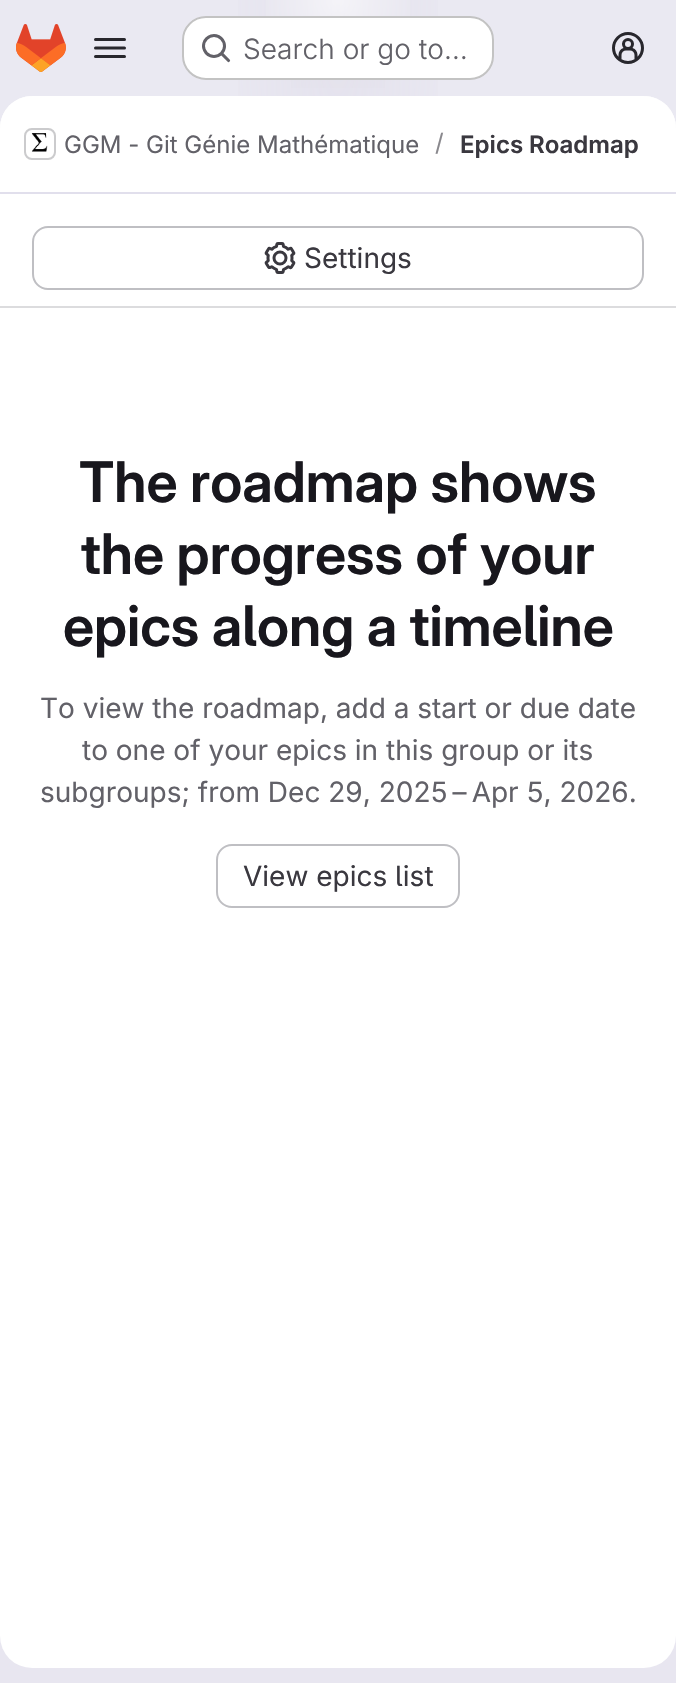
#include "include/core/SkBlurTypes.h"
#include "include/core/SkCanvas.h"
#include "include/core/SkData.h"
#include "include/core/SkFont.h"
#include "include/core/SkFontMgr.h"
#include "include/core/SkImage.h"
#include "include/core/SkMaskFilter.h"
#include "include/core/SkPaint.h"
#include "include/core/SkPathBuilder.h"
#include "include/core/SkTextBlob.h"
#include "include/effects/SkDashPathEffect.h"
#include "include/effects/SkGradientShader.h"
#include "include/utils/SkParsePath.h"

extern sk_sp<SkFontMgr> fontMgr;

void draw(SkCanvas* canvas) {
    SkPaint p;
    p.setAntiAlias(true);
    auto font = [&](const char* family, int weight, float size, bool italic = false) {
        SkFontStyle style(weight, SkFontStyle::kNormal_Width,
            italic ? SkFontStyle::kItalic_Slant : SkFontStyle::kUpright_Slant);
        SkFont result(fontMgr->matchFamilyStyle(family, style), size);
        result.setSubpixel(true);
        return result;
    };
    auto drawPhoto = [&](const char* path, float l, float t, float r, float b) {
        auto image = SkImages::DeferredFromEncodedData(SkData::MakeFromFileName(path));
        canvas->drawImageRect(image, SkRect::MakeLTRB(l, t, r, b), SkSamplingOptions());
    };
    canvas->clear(0xFFFFFFFF);
    {
        const SkColor colors[] = {0xFFE8E6F0, 0xFFEAE9F2};
        const float stops[] = {0, 0.7f};
        const SkPoint ends[] = {{492, 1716}, {184, -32}};
        p.setShader(SkGradientShader::MakeLinear(ends, colors, stops, 2, SkTileMode::kClamp));
        p.setAlpha(255);
    }
    canvas->drawRect(SkRect::MakeLTRB(0, 0, 676, 1683), p);
    {
        const SkColor colors[] = {0xFFE4E2ED, 0x00E4E2ED};
        const float stops[] = {0, 0.41f};
        SkMatrix m = SkMatrix::Translate(338, 0).preScale(338, 1684);
        p.setShader(SkGradientShader::MakeRadial({0, 0}, 1, colors, stops, 2, SkTileMode::kClamp, 0, &m));
        p.setAlpha(255);
    }
    canvas->drawRect(SkRect::MakeLTRB(238, 0, 438, 96), p);
    {
        const SkColor colors[] = {0xFFE4E2EC, 0x00E4E2EC};
        const float stops[] = {0, 0.3f};
        SkMatrix m = SkMatrix::Translate(338, 0).preScale(338, 1684);
        p.setShader(SkGradientShader::MakeRadial({0, 0}, 1, colors, stops, 2, SkTileMode::kClamp, 0, &m));
        p.setAlpha(255);
    }
    canvas->drawRect(SkRect::MakeLTRB(291, 16, 385, 88), p);
    {
        const SkColor colors[] = {0x99FFFFFF, 0x00FFFFFF};
        const float stops[] = {0, 0.05f};
        p.setShader(SkGradientShader::MakeRadial({338, 0}, 1718, colors, stops, 2, SkTileMode::kClamp));
        p.setAlpha(255);
    }
    canvas->drawRect(SkRect::MakeLTRB(266, 0, 410, 16), p);
    drawPhoto("media/1.png", 16, 24, 66, 72);
    drawPhoto("media/2.png", 94, 38, 126, 58);
    p.setShader(nullptr);
    p.setColor(0xFFFFFFFF);
    canvas->drawRoundRect(SkRect::MakeLTRB(182, 16, 494, 80), 24, 24, p);
    p.setStyle(SkPaint::kStroke_Style);
    p.setStrokeWidth(2);
    p.setColor(0x3D050506);
    canvas->drawRoundRect(SkRect::MakeLTRB(183, 17, 493, 79), 23, 23, p);
    drawPhoto("media/3.png", 202, 34, 231, 63);
    auto font1 = font("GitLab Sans", 300, 28);
    p.setStyle(SkPaint::kFill_Style);
    p.setColor(0xFF626168);
    canvas->drawString("Search or go to…", 243, 59, font1, p);
    drawPhoto("media/4.png", 612, 32, 644, 64);
    p.setColor(0xFFFFFFFF);
    canvas->drawRoundRect(SkRect::MakeLTRB(0, 96, 676, 1668), 32, 32, p);
    canvas->drawPath(SkPathBuilder().moveTo(32, 96).lineTo(644, 96).cubicTo(661.5f, 96, 676, 110.5f, 676, 128).lineTo(676, 194).lineTo(0, 194).lineTo(0, 128).cubicTo(0, 110.5f, 14.5f, 96, 32, 96).close().detach(), p);
    p.setColor(0xFFE1DFEC);
    canvas->drawRect(SkRect::MakeLTRB(0, 192, 676, 194), p);
    p.setStyle(SkPaint::kStroke_Style);
    p.setColor(0xFFDCDCDE);
    canvas->drawRoundRect(SkRect::MakeLTRB(25, 129, 55, 159), 7, 7, p);
    drawPhoto("media/5.png", 31, 133, 48, 152);
    p.setColor(0x14050506);
    canvas->drawRoundRect(SkRect::MakeLTRB(25, 129, 55, 159), 7, 7, p);
    auto font2 = font("GitLab Sans", 400, 24);
    p.setStyle(SkPaint::kFill_Style);
    p.setColor(0xFF626168);
    canvas->drawString("GGM - Git Génie Mathématique", 64, 153, font2, p);
    p.setColor(0xFF89888D);
    canvas->drawString("/", 435, 151, font2, p);
    auto font3 = font("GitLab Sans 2", 600, 24);
    p.setColor(0xFF3A383F);
    canvas->drawString("Epics Roadmap", 460, 153, font3, p);
    p.setColor(0xFFDCDCDE);
    canvas->drawRect(SkRect::MakeLTRB(0, 306, 676, 308), p);
    p.setStyle(SkPaint::kStroke_Style);
    p.setColor(0xFFBFBFC3);
    canvas->drawRoundRect(SkRect::MakeLTRB(33, 227, 643, 289), 15, 15, p);
    drawPhoto("media/6.png", 264, 242, 296, 274);
    auto font4 = font("GitLab Sans", 400, 28);
    p.setStyle(SkPaint::kFill_Style);
    p.setColor(0xFF3A383F);
    canvas->drawString("Settings", 304, 268, font4, p);
    auto font5 = font("GitLab Sans", 600, 56);
    p.setColor(0xFF18171D);
    {
        const struct { const char* s; float x, y; } items[] = {
            {"The roadmap shows", 79, 502},
            {"the progress of your", 81, 574},
            {"epics along a timeline", 63, 646},
        };
        for (auto [s, x, y] : items) {
            canvas->drawString(s, x, y, font5, p);
        }
    }
    p.setColor(0xFF626168);
    {
        const struct { const char* s; float x, y; } items[] = {
            {"To view the roadmap, add a start or due date", 40, 718},
            {"to one of your epics in this group or its", 82, 760},
            {"subgroups; from Dec 29, 2025 – Apr 5, 2026.", 40, 802},
        };
        for (auto [s, x, y] : items) {
            canvas->drawString(s, x, y, font4, p);
        }
    }
    p.setStyle(SkPaint::kStroke_Style);
    p.setColor(0xFFBFBFC3);
    canvas->drawRoundRect(SkRect::MakeLTRB(217, 845, 459, 907), 15, 15, p);
    p.setStyle(SkPaint::kFill_Style);
    p.setColor(0xFF3A383F);
    canvas->drawString("View epics list", 243, 886, font4, p);
}
